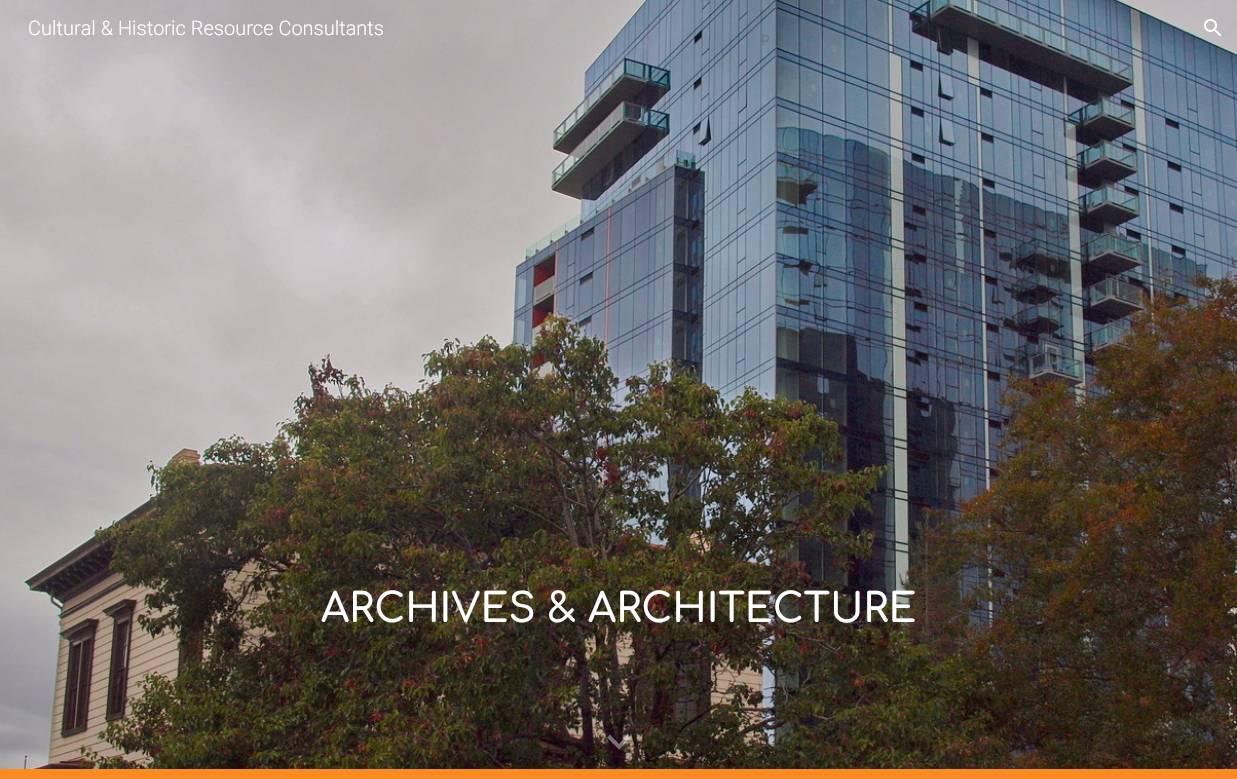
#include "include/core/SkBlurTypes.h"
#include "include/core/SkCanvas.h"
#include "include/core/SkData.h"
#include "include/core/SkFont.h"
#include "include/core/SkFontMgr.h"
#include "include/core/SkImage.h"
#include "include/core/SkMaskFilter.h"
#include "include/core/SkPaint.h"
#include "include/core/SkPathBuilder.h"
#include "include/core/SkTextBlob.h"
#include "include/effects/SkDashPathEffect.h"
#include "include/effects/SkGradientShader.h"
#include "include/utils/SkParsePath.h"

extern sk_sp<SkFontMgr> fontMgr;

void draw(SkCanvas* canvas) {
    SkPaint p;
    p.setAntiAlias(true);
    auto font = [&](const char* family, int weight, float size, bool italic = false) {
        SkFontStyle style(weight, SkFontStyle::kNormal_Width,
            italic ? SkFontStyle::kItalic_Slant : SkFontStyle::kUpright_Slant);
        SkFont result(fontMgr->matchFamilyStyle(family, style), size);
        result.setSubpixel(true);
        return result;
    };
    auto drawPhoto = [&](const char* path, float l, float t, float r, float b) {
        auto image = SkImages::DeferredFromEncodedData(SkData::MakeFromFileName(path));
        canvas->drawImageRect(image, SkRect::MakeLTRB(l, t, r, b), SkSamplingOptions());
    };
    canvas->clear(0xFFFFFFFF);
    drawPhoto("media/2.png", 0, 0, 1237, 769);
    auto font1 = font("Roboto", 300, 20);
    p.setColor(0xFFFFFFFF);
    canvas->drawString("Cultural & Historic Resource Consultants", 28, 35, font1, p);
    drawPhoto("media/1.png", 1204, 19, 1222, 37);
    p.setColor(0xFFFB8B21);
    canvas->drawRect(SkRect::MakeLTRB(0, 769, 1237, 779), p);
    auto font2 = font("Comfortaa", 600, 40);
    p.setColor(0xFFFFFFFF);
    canvas->drawString("ARCHIVES & ARCHITECTURE", 321, 622, font2, p);
    p.setColor(0x66FFFFFF);
    canvas->drawPath(SkPathBuilder().moveTo(610, 734.5f).lineTo(619, 744).lineTo(628, 734.5f).lineTo(631, 737.5f).lineTo(619, 749.5f).lineTo(607, 737.5f).close().detach(), p);
    auto font3 = font("Google Sans", 500, 14);
    p.setColor(0xFF62768A);
    canvas->drawString("p", 761, 42, font3, p);
}
